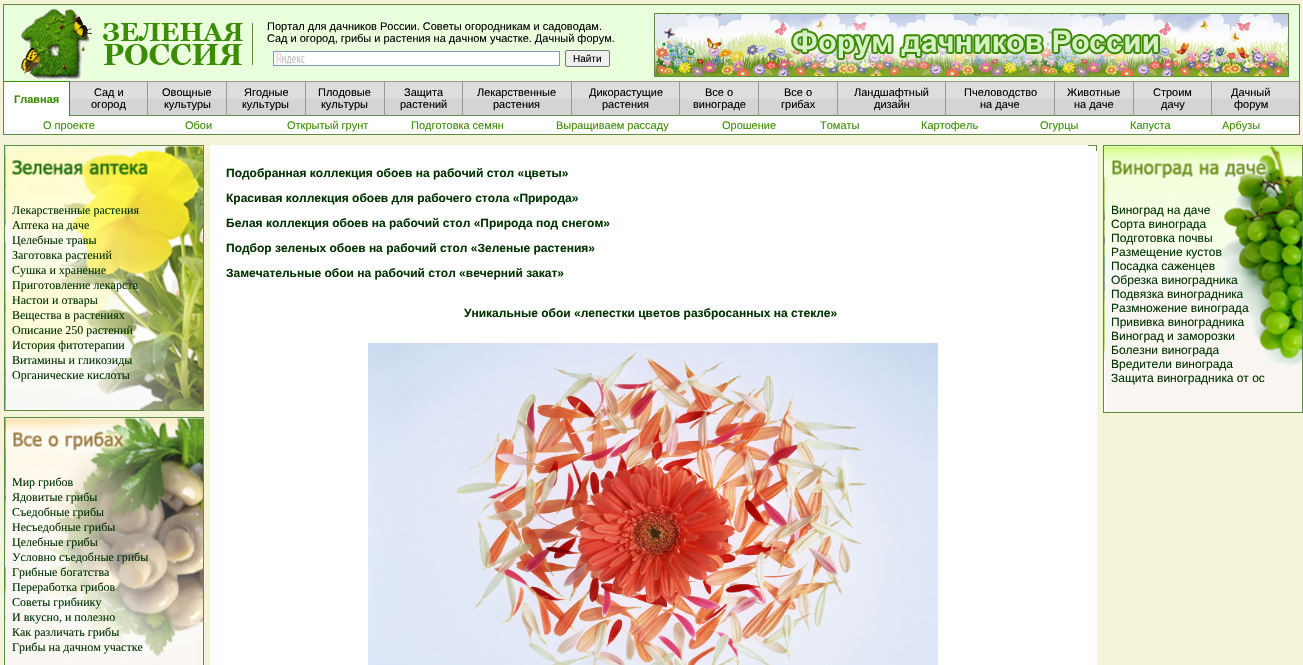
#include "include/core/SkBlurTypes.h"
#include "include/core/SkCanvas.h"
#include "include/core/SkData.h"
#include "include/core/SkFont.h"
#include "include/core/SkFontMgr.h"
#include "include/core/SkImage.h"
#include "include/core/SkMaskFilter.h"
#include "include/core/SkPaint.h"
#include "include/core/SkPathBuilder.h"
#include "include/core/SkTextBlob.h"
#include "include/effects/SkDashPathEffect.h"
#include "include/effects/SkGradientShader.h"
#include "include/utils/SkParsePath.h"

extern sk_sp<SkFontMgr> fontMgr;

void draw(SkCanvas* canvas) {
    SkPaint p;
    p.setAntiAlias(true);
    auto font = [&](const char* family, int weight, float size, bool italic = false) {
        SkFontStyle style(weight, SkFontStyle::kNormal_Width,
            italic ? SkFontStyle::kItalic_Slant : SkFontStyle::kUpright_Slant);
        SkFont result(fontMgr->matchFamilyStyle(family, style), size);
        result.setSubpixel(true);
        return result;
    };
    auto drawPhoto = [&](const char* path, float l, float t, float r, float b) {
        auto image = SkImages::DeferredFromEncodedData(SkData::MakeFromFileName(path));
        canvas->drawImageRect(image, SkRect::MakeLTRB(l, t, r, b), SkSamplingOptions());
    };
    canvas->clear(0xFFF5F3D8);
    p.setColor(0xFFEAFFDB);
    canvas->drawRect(SkRect::MakeLTRB(4, 5, 1299, 81), p);
    p.setStyle(SkPaint::kStroke_Style);
    p.setStrokeWidth(1);
    p.setColor(0xFF5D8B40);
    canvas->drawRect(SkRect::MakeLTRB(3.5f, 4.5f, 1299.5f, 134.5f), p);
    drawPhoto("media/1.png", 20, 8, 253, 81);
    auto font1 = font("Liberation Sans", 400, 11);
    p.setStyle(SkPaint::kFill_Style);
    p.setColor(0xFF000000);
    canvas->drawString("Портал для дачников России. Советы огородникам и садоводам.", 267, 30, font1, p);
    canvas->drawString("Сад и огород, грибы и растения на дачном участке. Дачный форум.", 267, 42, font1, p);
    p.setColor(0xFFFFFFFF);
    canvas->drawRect(SkRect::MakeLTRB(274, 52, 559, 65), p);
    drawPhoto("media/2.png", 276, 53, 305, 64);
    p.setStyle(SkPaint::kStroke_Style);
    p.setColor(0xFF7F9DB9);
    canvas->drawRect(SkRect::MakeLTRB(273.5f, 51.5f, 559.5f, 65.5f), p);
    p.setStyle(SkPaint::kFill_Style);
    p.setColor(0xFFEFEFEF);
    canvas->drawRoundRect(SkRect::MakeLTRB(565.5f, 50.5f, 609.5f, 66.5f), 1.5f, 1.5f, p);
    p.setStyle(SkPaint::kStroke_Style);
    p.setColor(0xFF767676);
    canvas->drawRoundRect(SkRect::MakeLTRB(565.5f, 50.5f, 609.5f, 66.5f), 1.5f, 1.5f, p);
    auto font2 = font("Liberation Sans", 400, 10);
    p.setStyle(SkPaint::kFill_Style);
    p.setColor(0xFF000000);
    canvas->drawString("Найти", 573, 62, font2, p);
    drawPhoto("media/3.png", 655, 14, 1288, 76);
    p.setStyle(SkPaint::kStroke_Style);
    p.setColor(0xFF5D8B40);
    canvas->drawRect(SkRect::MakeLTRB(654.5f, 13.5f, 1288.5f, 76.5f), p);
    drawPhoto("media/4.png", 785, 15, 1160, 75);
    drawPhoto("media/5.png", 70, 81, 1299, 115);
    p.setStyle(SkPaint::kFill_Style);
    {
        const struct { float l, t, r, b; SkColor color; } items[] = {
            {70, 115, 1299, 116, 0xFF5D8B40},
            {4, 82, 69, 116, 0xFFFFFFFF},
            {4, 81, 70, 82, 0xFF3A8C02},
            {69, 81, 70, 116, 0xFF3A8C02},
        };
        for (auto [l, t, r, b, color] : items) {
            p.setColor(color);
            canvas->drawRect(SkRect::MakeLTRB(l, t, r, b), p);
        }
    }
    auto font3 = font("Liberation Sans", 700, 11);
    canvas->drawString("Главная", 14, 103, font3, p);
    p.setColor(0xFF999999);
    canvas->drawRect(SkRect::MakeLTRB(147, 81, 148, 120), p);
    p.setColor(0xFF000000);
    canvas->drawString("Сад и", 94, 96, font1, p);
    canvas->drawString("огород", 91, 108, font1, p);
    p.setColor(0xFF999999);
    canvas->drawRect(SkRect::MakeLTRB(226, 81, 227, 120), p);
    p.setColor(0xFF000000);
    canvas->drawString("Овощные", 162, 96, font1, p);
    canvas->drawString("культуры", 164, 108, font1, p);
    p.setColor(0xFF999999);
    canvas->drawRect(SkRect::MakeLTRB(305, 81, 306, 120), p);
    p.setColor(0xFF000000);
    canvas->drawString("Ягодные", 244, 96, font1, p);
    canvas->drawString("культуры", 242, 108, font1, p);
    p.setColor(0xFF999999);
    canvas->drawRect(SkRect::MakeLTRB(384, 81, 385, 120), p);
    p.setColor(0xFF000000);
    canvas->drawString("Плодовые", 318, 96, font1, p);
    canvas->drawString("культуры", 321, 108, font1, p);
    p.setColor(0xFF999999);
    canvas->drawRect(SkRect::MakeLTRB(462, 81, 463, 120), p);
    p.setColor(0xFF000000);
    canvas->drawString("Защита", 404, 96, font1, p);
    canvas->drawString("растений", 400, 108, font1, p);
    p.setColor(0xFF999999);
    canvas->drawRect(SkRect::MakeLTRB(571, 81, 572, 120), p);
    p.setColor(0xFF000000);
    canvas->drawString("Лекарственные", 477, 96, font1, p);
    canvas->drawString("растения", 493, 108, font1, p);
    p.setColor(0xFF999999);
    canvas->drawRect(SkRect::MakeLTRB(679, 81, 680, 120), p);
    p.setColor(0xFF000000);
    canvas->drawString("Дикорастущие", 589, 96, font1, p);
    canvas->drawString("растения", 602, 108, font1, p);
    p.setColor(0xFF999999);
    canvas->drawRect(SkRect::MakeLTRB(758, 81, 759, 120), p);
    p.setColor(0xFF000000);
    canvas->drawString("Все о", 705, 96, font1, p);
    canvas->drawString("винограде", 693, 108, font1, p);
    p.setColor(0xFF999999);
    canvas->drawRect(SkRect::MakeLTRB(837, 81, 838, 120), p);
    p.setColor(0xFF000000);
    canvas->drawString("Все о", 784, 96, font1, p);
    canvas->drawString("грибах", 781, 108, font1, p);
    p.setColor(0xFF999999);
    canvas->drawRect(SkRect::MakeLTRB(945, 81, 946, 120), p);
    p.setColor(0xFF000000);
    canvas->drawString("Ландшафтный", 854, 96, font1, p);
    canvas->drawString("дизайн", 874, 108, font1, p);
    p.setColor(0xFF999999);
    canvas->drawRect(SkRect::MakeLTRB(1054, 81, 1055, 120), p);
    p.setColor(0xFF000000);
    canvas->drawString("Пчеловодство", 964, 96, font1, p);
    canvas->drawString("на даче", 980, 108, font1, p);
    p.setColor(0xFF999999);
    canvas->drawRect(SkRect::MakeLTRB(1133, 81, 1134, 120), p);
    p.setColor(0xFF000000);
    canvas->drawString("Животные", 1067, 96, font1, p);
    canvas->drawString("на даче", 1074, 108, font1, p);
    p.setColor(0xFF999999);
    canvas->drawRect(SkRect::MakeLTRB(1211, 81, 1212, 120), p);
    p.setColor(0xFF000000);
    {
        const struct { const char* s; float x, y; } items[] = {
            {"Строим", 1153, 96},
            {"дачу", 1161, 108},
            {"Дачный", 1231, 96},
            {"форум", 1234, 108},
        };
        for (auto [s, x, y] : items) {
            canvas->drawString(s, x, y, font1, p);
        }
    }
    p.setColor(0xFFFFFFFF);
    canvas->drawRect(SkRect::MakeLTRB(4, 116, 1299, 134), p);
    p.setColor(0xFF3A8C02);
    {
        const struct { const char* s; float x, y; } items[] = {
            {"О проекте", 43, 129},
            {"Обои", 185, 129},
            {"Открытый грунт", 287, 129},
            {"Подготовка семян", 411, 129},
            {"Выращиваем рассаду", 556, 129},
            {"Орошение", 722, 129},
            {"Томаты", 820, 129},
            {"Картофель", 921, 129},
            {"Огурцы", 1040, 129},
            {"Капуста", 1130, 129},
            {"Арбузы", 1222, 129},
        };
        for (auto [s, x, y] : items) {
            canvas->drawString(s, x, y, font1, p);
        }
    }
    p.setColor(0xFFFFFFFF);
    canvas->drawRect(SkRect::MakeLTRB(219, 151, 1088, 665), p);
    auto font4 = font("Liberation Sans", 700, 12);
    p.setColor(0xFF003300);
    {
        const struct { const char* s; float x, y; } items[] = {
            {"Подобранная коллекция обоев на рабочий стол «цветы»", 226, 177},
            {"Красивая коллекция обоев для рабочего стола «Природа»", 226, 202},
            {"Белая коллекция обоев на рабочий стол «Природа под снегом»", 226, 227},
            {"Подбор зеленых обоев на рабочий стол «Зеленые растения»", 226, 252},
            {"Замечательные обои на рабочий стол «вечерний закат»", 226, 277},
            {"Уникальные обои «лепестки цветов разбросанных на стекле»", 464, 317},
        };
        for (auto [s, x, y] : items) {
            canvas->drawString(s, x, y, font4, p);
        }
    }
    drawPhoto("media/6.png", 368, 343, 938, 665);
    {
        const struct { float l, t, r, b; SkColor color; } items[] = {
            {1088, 151, 1097, 665, 0xFFFFFDFE},
            {210, 145, 219, 665, 0xFFFFFDFE},
            {219, 145, 1088, 151, 0xFFFEFEFE},
        };
        for (auto [l, t, r, b, color] : items) {
            p.setColor(color);
            canvas->drawRect(SkRect::MakeLTRB(l, t, r, b), p);
        }
    }
    drawPhoto("media/7.png", 1088, 145, 1103, 151);
    {
        const struct { float l, t, r, b; SkColor color; } items[] = {
            {4, 145, 204, 146, 0xFF5C8C42},
            {203, 145, 204, 411, 0xFF5C8C42},
            {4, 410, 204, 411, 0xFF5C8C42},
            {4, 145, 5, 411, 0xFF5C8C42},
        };
        for (auto [l, t, r, b, color] : items) {
            p.setColor(color);
            canvas->drawRect(SkRect::MakeLTRB(l, t, r, b), p);
        }
    }
    drawPhoto("media/8.png", 5, 146, 203, 410);
    auto font5 = font("Liberation Serif", 400, 12);
    p.setColor(0xFF003300);
    {
        const struct { const char* s; float x, y; } items[] = {
            {"Лекарственные растения", 12, 214},
            {"Аптека на даче", 12, 229},
            {"Целебные травы", 12, 244},
            {"Заготовка растений", 12, 259},
            {"Сушка и хранение", 12, 274},
            {"Приготовление лекарств", 12, 289},
            {"Настои и отвары", 12, 304},
            {"Вещества в растениях", 12, 319},
            {"Описание 250 растений", 12, 334},
            {"История фитотерапии", 12, 349},
            {"Витамины и гликозиды", 12, 364},
            {"Органические кислоты", 12, 379},
        };
        for (auto [s, x, y] : items) {
            canvas->drawString(s, x, y, font5, p);
        }
    }
    {
        const struct { float l, t, r, b; SkColor color; } items[] = {
            {4, 417, 204, 418, 0xFF5C8C42},
            {203, 417, 204, 665, 0xFF5C8C42},
            {4, 417, 5, 665, 0xFF5C8C42},
        };
        for (auto [l, t, r, b, color] : items) {
            p.setColor(color);
            canvas->drawRect(SkRect::MakeLTRB(l, t, r, b), p);
        }
    }
    drawPhoto("media/9.png", 5, 418, 203, 665);
    p.setColor(0xFF003300);
    {
        const struct { const char* s; float x, y; } items[] = {
            {"Мир грибов", 12, 486},
            {"Ядовитые грибы", 12, 501},
            {"Съедобные грибы", 12, 516},
            {"Несъедобные грибы", 12, 531},
            {"Целебные грибы", 12, 546},
            {"Условно съедобные грибы", 12, 561},
            {"Грибные богатства", 12, 576},
            {"Переработка грибов", 12, 591},
            {"Советы грибнику", 12, 606},
            {"И вкусно, и полезно", 12, 621},
            {"Как различать грибы", 12, 636},
            {"Грибы на дачном участке", 12, 651},
        };
        for (auto [s, x, y] : items) {
            canvas->drawString(s, x, y, font5, p);
        }
    }
    {
        const struct { float l, t, r, b; SkColor color; } items[] = {
            {1103, 145, 1303, 146, 0xFF5C8C42},
            {1302, 145, 1303, 413, 0xFF5C8C42},
            {1103, 412, 1303, 413, 0xFF5C8C42},
            {1103, 145, 1104, 413, 0xFF5C8C42},
        };
        for (auto [l, t, r, b, color] : items) {
            p.setColor(color);
            canvas->drawRect(SkRect::MakeLTRB(l, t, r, b), p);
        }
    }
    drawPhoto("media/10.png", 1104, 146, 1302, 412);
    auto font6 = font("Liberation Sans", 400, 12);
    p.setColor(0xFF003300);
    {
        const struct { const char* s; float x, y; } items[] = {
            {"Виноград на даче", 1111, 214},
            {"Сорта винограда", 1111, 228},
            {"Подготовка почвы", 1111, 242},
            {"Размещение кустов", 1111, 256},
            {"Посадка саженцев", 1111, 270},
            {"Обрезка виноградника", 1111, 284},
            {"Подвязка виноградника", 1111, 298},
            {"Размножение винограда", 1111, 312},
            {"Прививка виноградника", 1111, 326},
            {"Виноград и заморозки", 1111, 340},
            {"Болезни винограда", 1111, 354},
            {"Вредители винограда", 1111, 368},
            {"Защита виноградника от ос", 1111, 382},
        };
        for (auto [s, x, y] : items) {
            canvas->drawString(s, x, y, font6, p);
        }
    }
}
